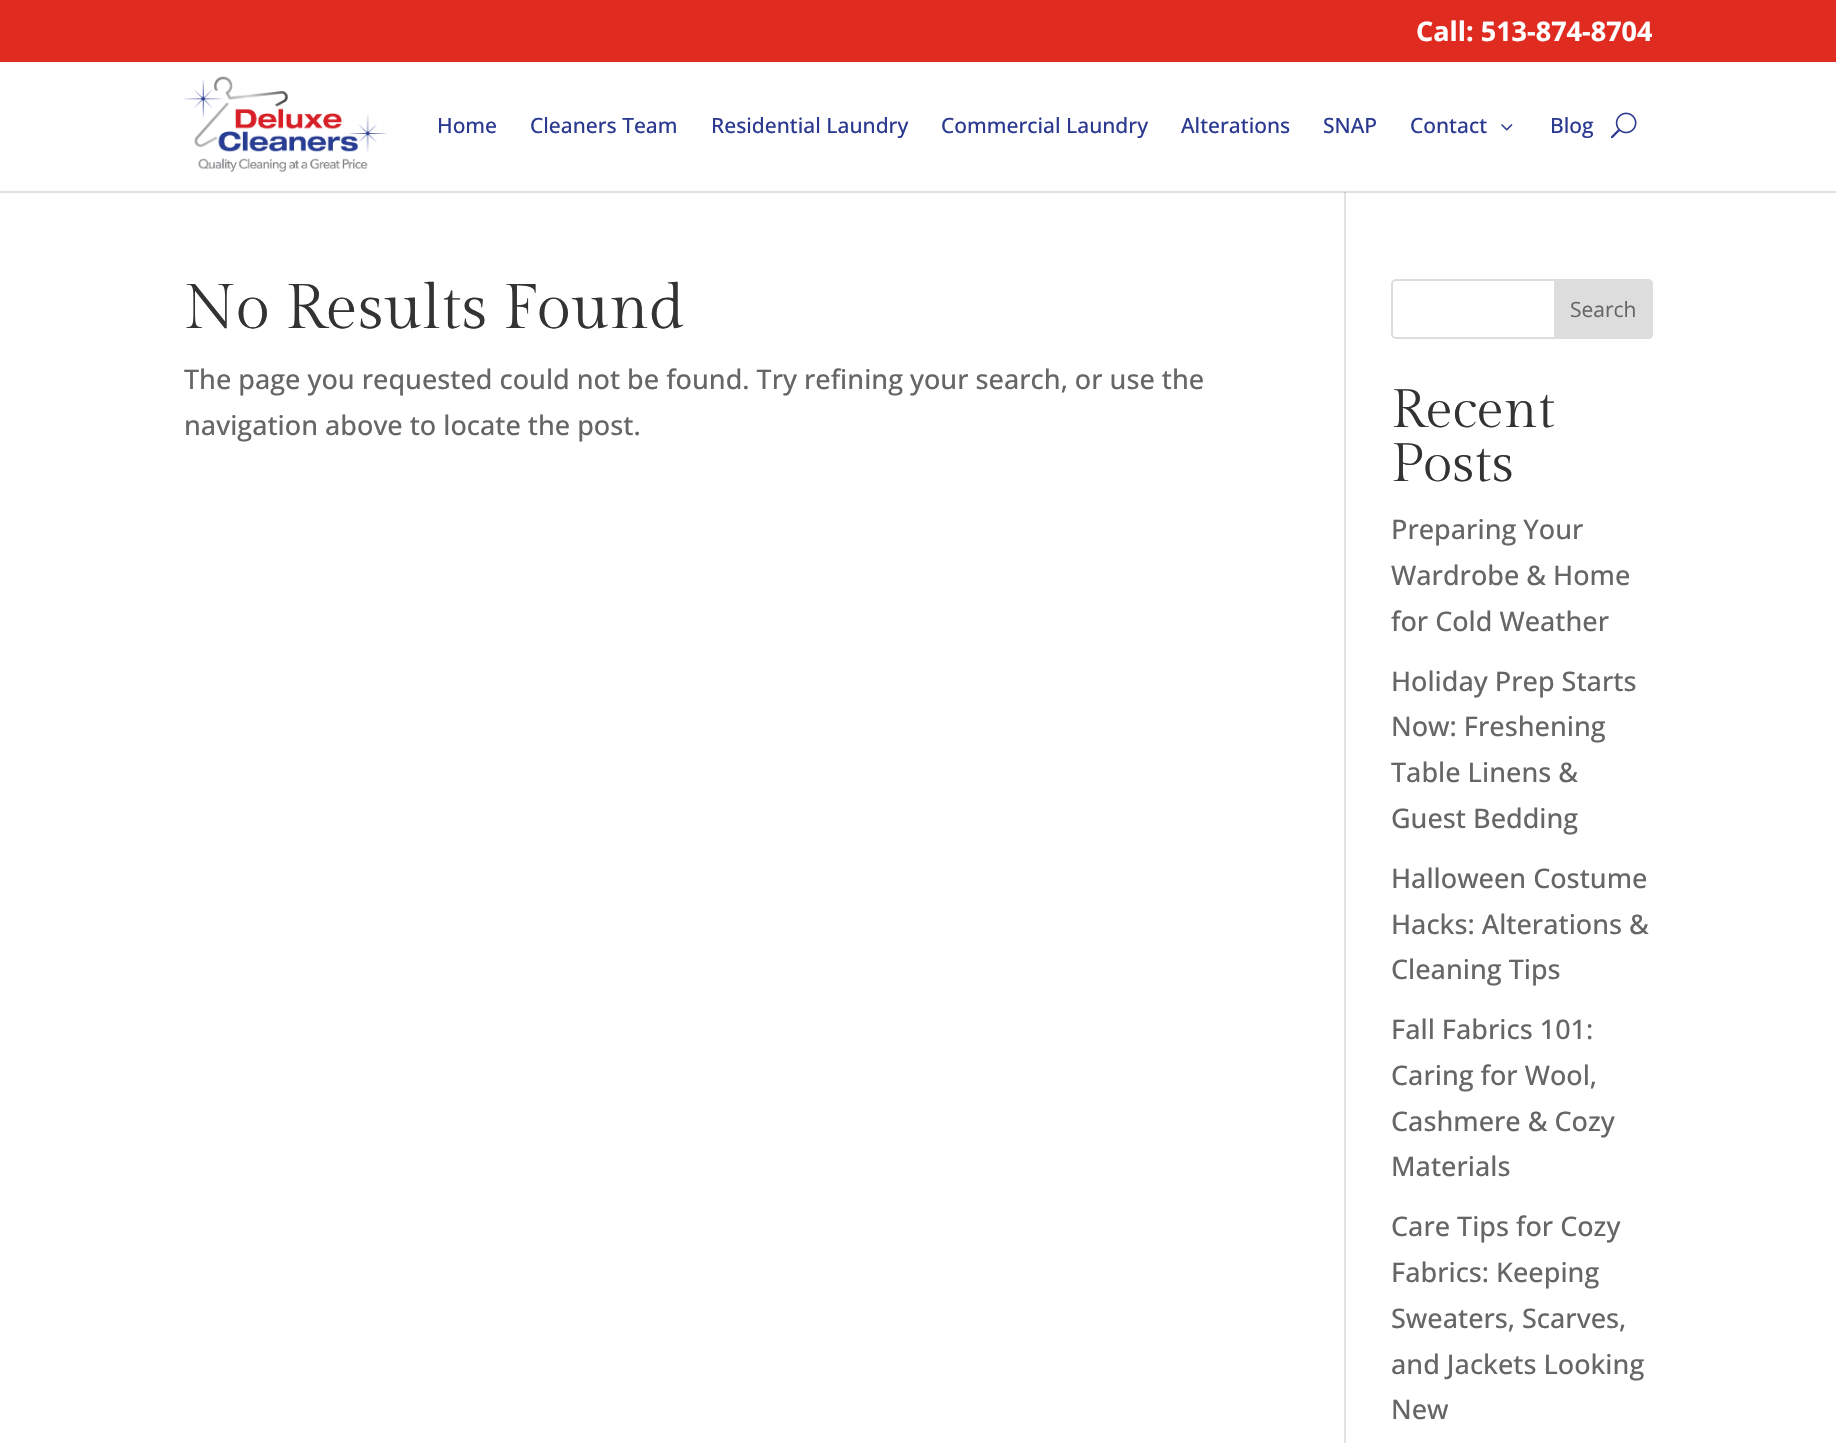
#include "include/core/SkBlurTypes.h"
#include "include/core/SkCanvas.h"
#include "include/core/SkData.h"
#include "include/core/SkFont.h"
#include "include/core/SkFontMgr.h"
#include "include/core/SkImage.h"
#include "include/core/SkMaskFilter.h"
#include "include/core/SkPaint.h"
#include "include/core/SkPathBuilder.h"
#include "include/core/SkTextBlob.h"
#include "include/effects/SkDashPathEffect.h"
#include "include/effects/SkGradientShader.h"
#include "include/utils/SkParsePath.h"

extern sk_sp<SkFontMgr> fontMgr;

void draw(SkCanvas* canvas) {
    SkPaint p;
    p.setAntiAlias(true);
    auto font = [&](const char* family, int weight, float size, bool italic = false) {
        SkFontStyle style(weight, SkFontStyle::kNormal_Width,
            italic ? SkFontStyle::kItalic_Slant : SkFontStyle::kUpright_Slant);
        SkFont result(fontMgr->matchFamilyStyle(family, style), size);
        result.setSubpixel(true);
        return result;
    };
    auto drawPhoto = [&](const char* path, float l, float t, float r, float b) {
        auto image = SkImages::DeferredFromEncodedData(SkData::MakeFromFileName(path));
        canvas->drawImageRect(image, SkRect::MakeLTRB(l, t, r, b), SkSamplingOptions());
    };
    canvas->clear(0xFFFFFFFF);
    p.setColor(0xFFE0E0E0);
    canvas->drawRect(SkRect::MakeLTRB(0, 191, 1836, 193), p);
    p.setColor(0xFFE02B20);
    canvas->drawRect(SkRect::MakeLTRB(0, 0, 1836, 62), p);
    auto font1 = font("Open Sans", 700, 27);
    p.setColor(0xFFFFFFFF);
    canvas->drawString("Call: 513-874-8704", 1416, 41, font1, p);
    drawPhoto("media/1.png", 183, 76, 388, 173);
    auto font2 = font("Open Sans", 500, 21);
    p.setColor(0xFF2B3990);
    {
        const struct { const char* s; float x, y; } items[] = {
            {"Home", 437, 133},
            {"Cleaners Team", 530, 133},
            {"Residential Laundry", 711, 133},
            {"Commercial Laundry", 941, 133},
            {"Alterations", 1181, 133},
            {"SNAP", 1323, 133},
            {"Contact", 1410, 133},
        };
        for (auto [s, x, y] : items) {
            canvas->drawString(s, x, y, font2, p);
        }
    }
    drawPhoto("media/2.png", 1501, 124, 1513, 131);
    canvas->drawString("Blog", 1550, 133, font2, p);
    drawPhoto("media/3.png", 1610, 112, 1637, 139);
    p.setColor(0xFFE2E2E2);
    canvas->drawRect(SkRect::MakeLTRB(1344, 192, 1346, 1443), p);
    p.setColor(0xFFC7C7C7);
    canvas->drawRect(SkRect::MakeLTRB(1344, 192, 1346, 193), p);
    auto font3 = font("Gilda Display", 400, 63);
    p.setColor(0xFF333333);
    canvas->drawString("No Results Found", 184, 328, font3, p);
    auto font4 = font("Open Sans", 500, 27);
    p.setColor(0xFF666666);
    canvas->drawString("The page you requested could not be found. Try refining your search, or use the", 184, 389, font4, p);
    canvas->drawString("navigation above to locate the post.", 184, 435, font4, p);
    p.setStyle(SkPaint::kStroke_Style);
    p.setStrokeWidth(2);
    p.setColor(0xFFDDDDDD);
    canvas->drawRoundRect(SkRect::MakeLTRB(1392, 280, 1652, 338), 4, 4, p);
    p.setStyle(SkPaint::kFill_Style);
    canvas->drawPath(SkPathBuilder().moveTo(1555, 280).lineTo(1648, 280).cubicTo(1650, 280, 1652, 282, 1652, 284).lineTo(1652, 334).cubicTo(1652, 336, 1650, 338, 1648, 338).lineTo(1555, 338).close().detach(), p);
    p.setStyle(SkPaint::kStroke_Style);
    canvas->drawPath(SkPathBuilder().moveTo(1555, 280).lineTo(1648, 280).cubicTo(1650, 280, 1652, 282, 1652, 284).lineTo(1652, 334).cubicTo(1652, 336, 1650, 338, 1648, 338).lineTo(1555, 338).close().detach(), p);
    auto font5 = font("Open Sans", 400, 21);
    p.setStyle(SkPaint::kFill_Style);
    p.setColor(0xFF666666);
    canvas->drawString("Search", 1570, 317, font5, p);
    auto font6 = font("Gilda Display", 400, 54);
    p.setColor(0xFF333333);
    canvas->drawString("Recent", 1391, 427, font6, p);
    canvas->drawString("Posts", 1391, 481, font6, p);
    p.setColor(0xFF666666);
    {
        const struct { const char* s; float x, y; } items[] = {
            {"Preparing Your", 1391, 539},
            {"Wardrobe & Home", 1391, 585},
            {"for Cold Weather", 1391, 631},
            {"Holiday Prep Starts", 1391, 691},
            {"Now: Freshening", 1391, 736},
            {"Table Linens &", 1391, 782},
            {"Guest Bedding", 1391, 828},
            {"Halloween Costume", 1391, 888},
            {"Hacks: Alterations &", 1391, 934},
            {"Cleaning Tips", 1391, 979},
            {"Fall Fabrics 101:", 1391, 1039},
            {"Caring for Wool,", 1391, 1085},
            {"Cashmere & Cozy", 1391, 1131},
            {"Materials", 1391, 1176},
            {"Care Tips for Cozy", 1391, 1236},
            {"Fabrics: Keeping", 1391, 1282},
            {"Sweaters, Scarves,", 1391, 1328},
            {"and Jackets Looking", 1391, 1374},
            {"New", 1391, 1419},
        };
        for (auto [s, x, y] : items) {
            canvas->drawString(s, x, y, font4, p);
        }
    }
}
